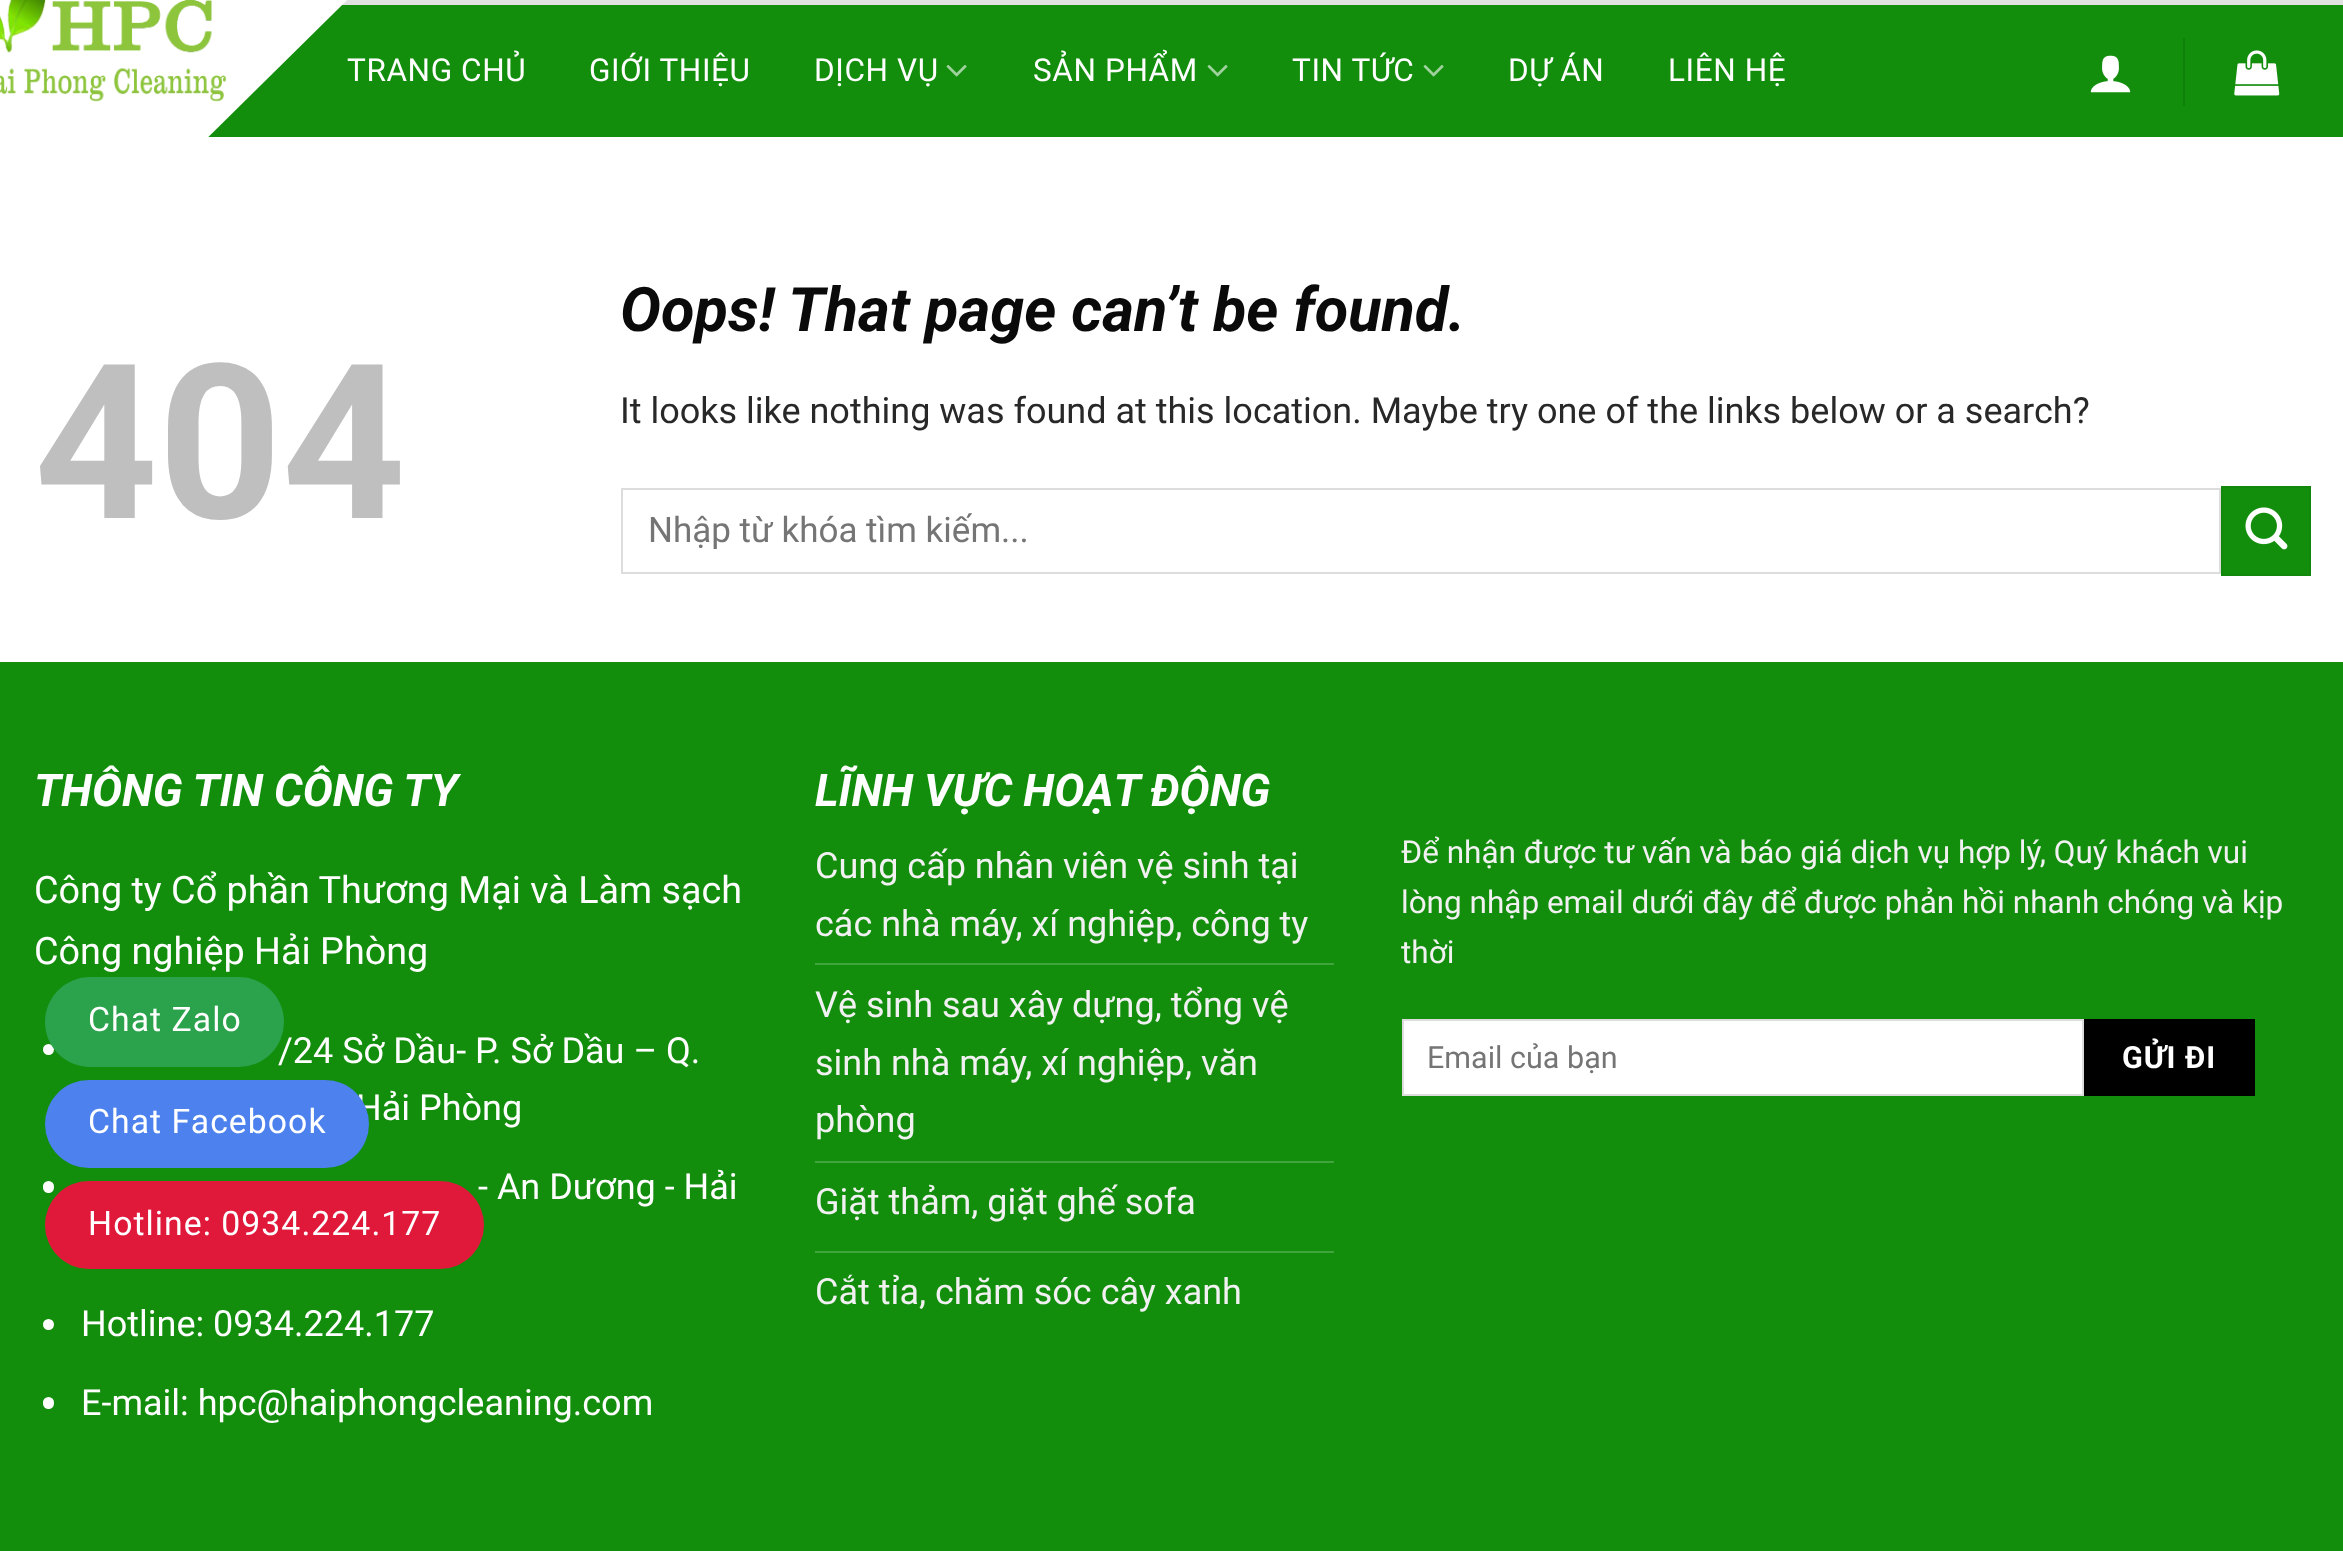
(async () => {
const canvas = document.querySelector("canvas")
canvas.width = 2343
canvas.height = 1551
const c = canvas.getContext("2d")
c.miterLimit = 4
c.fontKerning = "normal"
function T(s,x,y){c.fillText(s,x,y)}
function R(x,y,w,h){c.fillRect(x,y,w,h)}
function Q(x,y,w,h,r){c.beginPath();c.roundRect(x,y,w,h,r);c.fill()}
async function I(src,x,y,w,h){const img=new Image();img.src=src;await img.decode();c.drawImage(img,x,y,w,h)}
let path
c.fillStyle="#fff"
R(0,0,2343,1551)
c.fillStyle="#e1e1e1"
R(342,0,2001,5)
c.fillStyle="#128e0c"
R(208,5,2135,132)
c.fillStyle="#fff"
path = new Path2D("M0-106v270h180l270-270z")
c.fill(path)
path = new Path2D("M181 164h-147v-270h376v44z")
c.fill(path)
await I("1.png",0,0,227,102)
c.letterSpacing="0.6px"
c.font="31.5px Roboto"
T("TRANG CHỦ",347,81)
T("GIỚI THIỆU",589,81)
T("DỊCH VỤ",814,81)
await I("2.png",946,64,21,13)
T("SẢN PHẨM",1033,81)
await I("2.png",1207,64,21,13)
T("TIN TỨC",1292,81)
await I("2.png",1423,64,21,13)
T("DỰ ÁN",1508,81)
T("LIÊN HỆ",1668,81)
await I("3.png",2090,55,41,38)
c.fillStyle="#10800b"
R(2183,38,2,68)
await I("4.png",2234,50,46,46)
c.letterSpacing="0px"
c.font="bold 216px Roboto"
c.fillStyle="#bfbfbf"
T("404",34,518)
c.font="italic bold 61.25px Roboto"
c.fillStyle="#0a0a0a"
T("Oops! That page can’t be found.",620,331)
c.font="36px Roboto"
c.fillStyle="#282828"
T("It looks like nothing was found at this location. Maybe try one of the links below or a search?",620,423)
c.strokeStyle="#ddd"
c.lineWidth=2
c.strokeRect(622,489,1598,84)
c.font="35px Roboto"
c.fillStyle="#757575"
T("Nhập từ khóa tìm kiếm...",648,542)
c.fillStyle="#128e0c"
c.beginPath()
c.rect(2222,487,88,88)
c.fill()
c.strokeStyle="#11870b"
c.stroke()
await I("5.png",2245,507,43,43)
R(0,662,2343,889)
c.font="italic bold 45px Roboto"
c.fillStyle="#fff"
T("THÔNG TIN CÔNG TY",34,806)
c.font="37.75px Roboto"
T("Công ty Cổ phần Thương Mại và Làm sạch",34,903)
T("Công nghiệp Hải Phòng",34,964)
c.beginPath()
c.arc(48.5,1049.5,5.5,0,7)
c.fill()
c.font="36px Roboto"
T("/24 Sở Dầu- P. Sở Dầu – Q.",278,1063)
T("Hải Phòng",356,1120)
Q(43,1181,11,12,5.5)
T("- An Dương - Hải",478,1199)
c.beginPath()
c.arc(48.5,1324.5,5.5,0,7)
c.fill()
T("Hotline: 0934.224.177",81,1336)
Q(43,1397,11,12,5.5)
T("E-mail: hpc@haiphongcleaning.com",81,1415)
c.font="italic bold 45px Roboto"
T("LĨNH VỰC HOẠT ĐỘNG",815,806)
c.fillStyle="#41a53d"
R(815,963,519,2)
c.font="36px Roboto"
c.fillStyle="#f1f1f1"
T("Cung cấp nhân viên vệ sinh tại",815,878)
T("các nhà máy, xí nghiệp, công ty",815,936)
c.fillStyle="#41a53d"
R(815,1161,519,2)
c.fillStyle="#f1f1f1"
T("Vệ sinh sau xây dựng, tổng vệ",815,1017)
T("sinh nhà máy, xí nghiệp, văn",815,1075)
T("phòng",815,1132)
c.fillStyle="#41a53d"
R(815,1251,519,2)
c.fillStyle="#f1f1f1"
T("Giặt thảm, giặt ghế sofa",815,1214)
T("Cắt tỉa, chăm sóc cây xanh",815,1304)
c.font="31.5px Roboto"
T("Để nhận được tư vấn và báo giá dịch vụ hợp lý, Quý khách vui",1401,863)
T("lòng nhập email dưới đây để được phản hồi nhanh chóng và kịp",1401,913)
T("thời",1401,963)
c.fillStyle="#fff"
c.beginPath()
c.rect(1403,1020,680,75)
c.fill()
c.strokeStyle="#ddd"
c.stroke()
c.font="30.5px Roboto"
c.fillStyle="#757575"
T("Email của bạn",1427,1068)
c.fillStyle="#000"
R(2084,1019,171,77)
c.letterSpacing="1px"
c.font="bold 30.5px Roboto"
c.fillStyle="#fff"
T("GỬI ĐI",2122,1068)
c.fillStyle="#2ba24c"
Q(45,977,239,90,45)
c.letterSpacing="1.05px"
c.font="33.75px Roboto"
c.fillStyle="#fff"
T("Chat Zalo",88,1031)
c.fillStyle="#4d81ee"
Q(45,1080,324,88,44)
c.fillStyle="#fff"
T("Chat Facebook",88,1133)
c.fillStyle="#e0193b"
Q(45,1181,439,88,44)
c.fillStyle="#fff"
T("Hotline: 0934.224.177",88,1235)
})()
